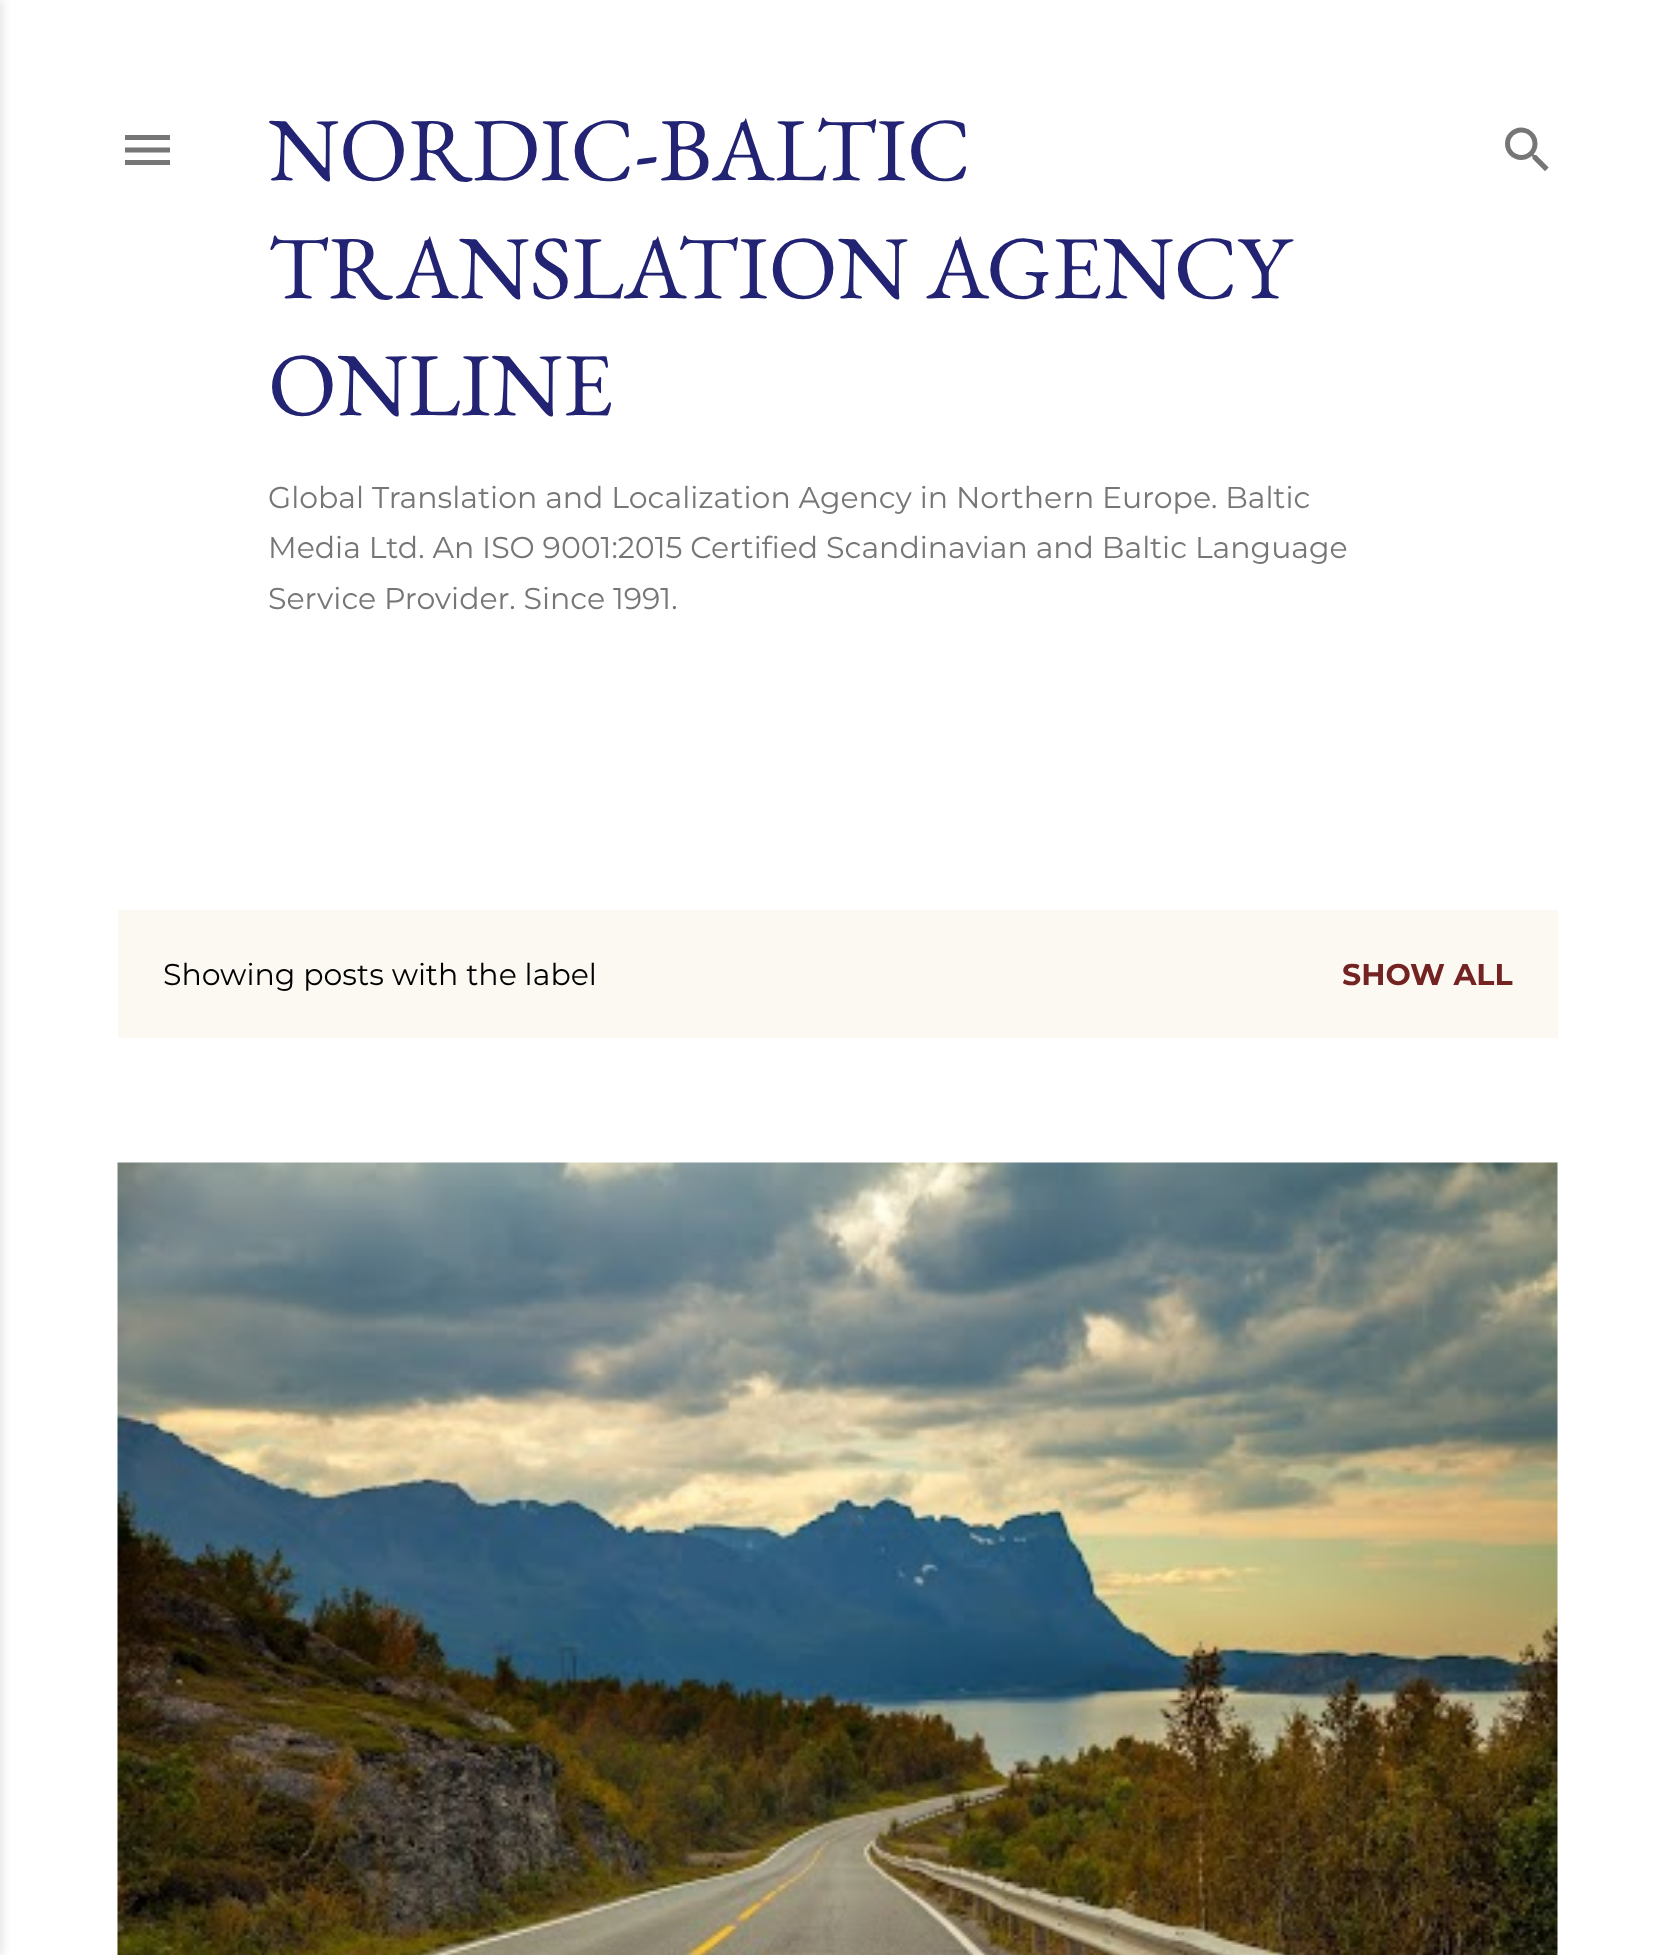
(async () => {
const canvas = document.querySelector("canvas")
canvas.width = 1673
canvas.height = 1955
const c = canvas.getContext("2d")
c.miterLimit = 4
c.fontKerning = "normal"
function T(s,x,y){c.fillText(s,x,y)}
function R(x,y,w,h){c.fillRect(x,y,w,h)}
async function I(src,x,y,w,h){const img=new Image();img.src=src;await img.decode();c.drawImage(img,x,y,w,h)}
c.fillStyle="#fff"
R(0,0,1673,1955)
c.fillStyle="#0000001a"
c.filter="blur(4px)"
c.beginPath()
c.rect(-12,0,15,1955)
c.fill()
c.filter="none"
await I("1.png",125,135,45,30)
c.font="90px EB Garamond"
c.fillStyle="#232374"
T("NORDIC-BALTIC",268,180)
T("TRANSLATION AGENCY",268,298)
T("ONLINE",268,415)
c.font="30px Montserrat"
c.fillStyle="#767676"
T("Global Translation and Localization Agency in Northern Europe. Baltic",268,508)
T("Media Ltd. An ISO 9001:2015 Certified Scandinavian and Baltic Language",268,558)
T("Service Provider. Since 1991.",268,609)
await I("2.png",1505,127,44,44)
c.fillStyle="#fcf9f2"
R(118,910,1440,128)
c.fillStyle="#000"
T("Showing posts with the label",163,985)
c.font="bold 30px Montserrat"
c.fillStyle="#742323"
T("SHOW ALL",1342,985)
await I("3.png",117,1162,1441,793)
})()
